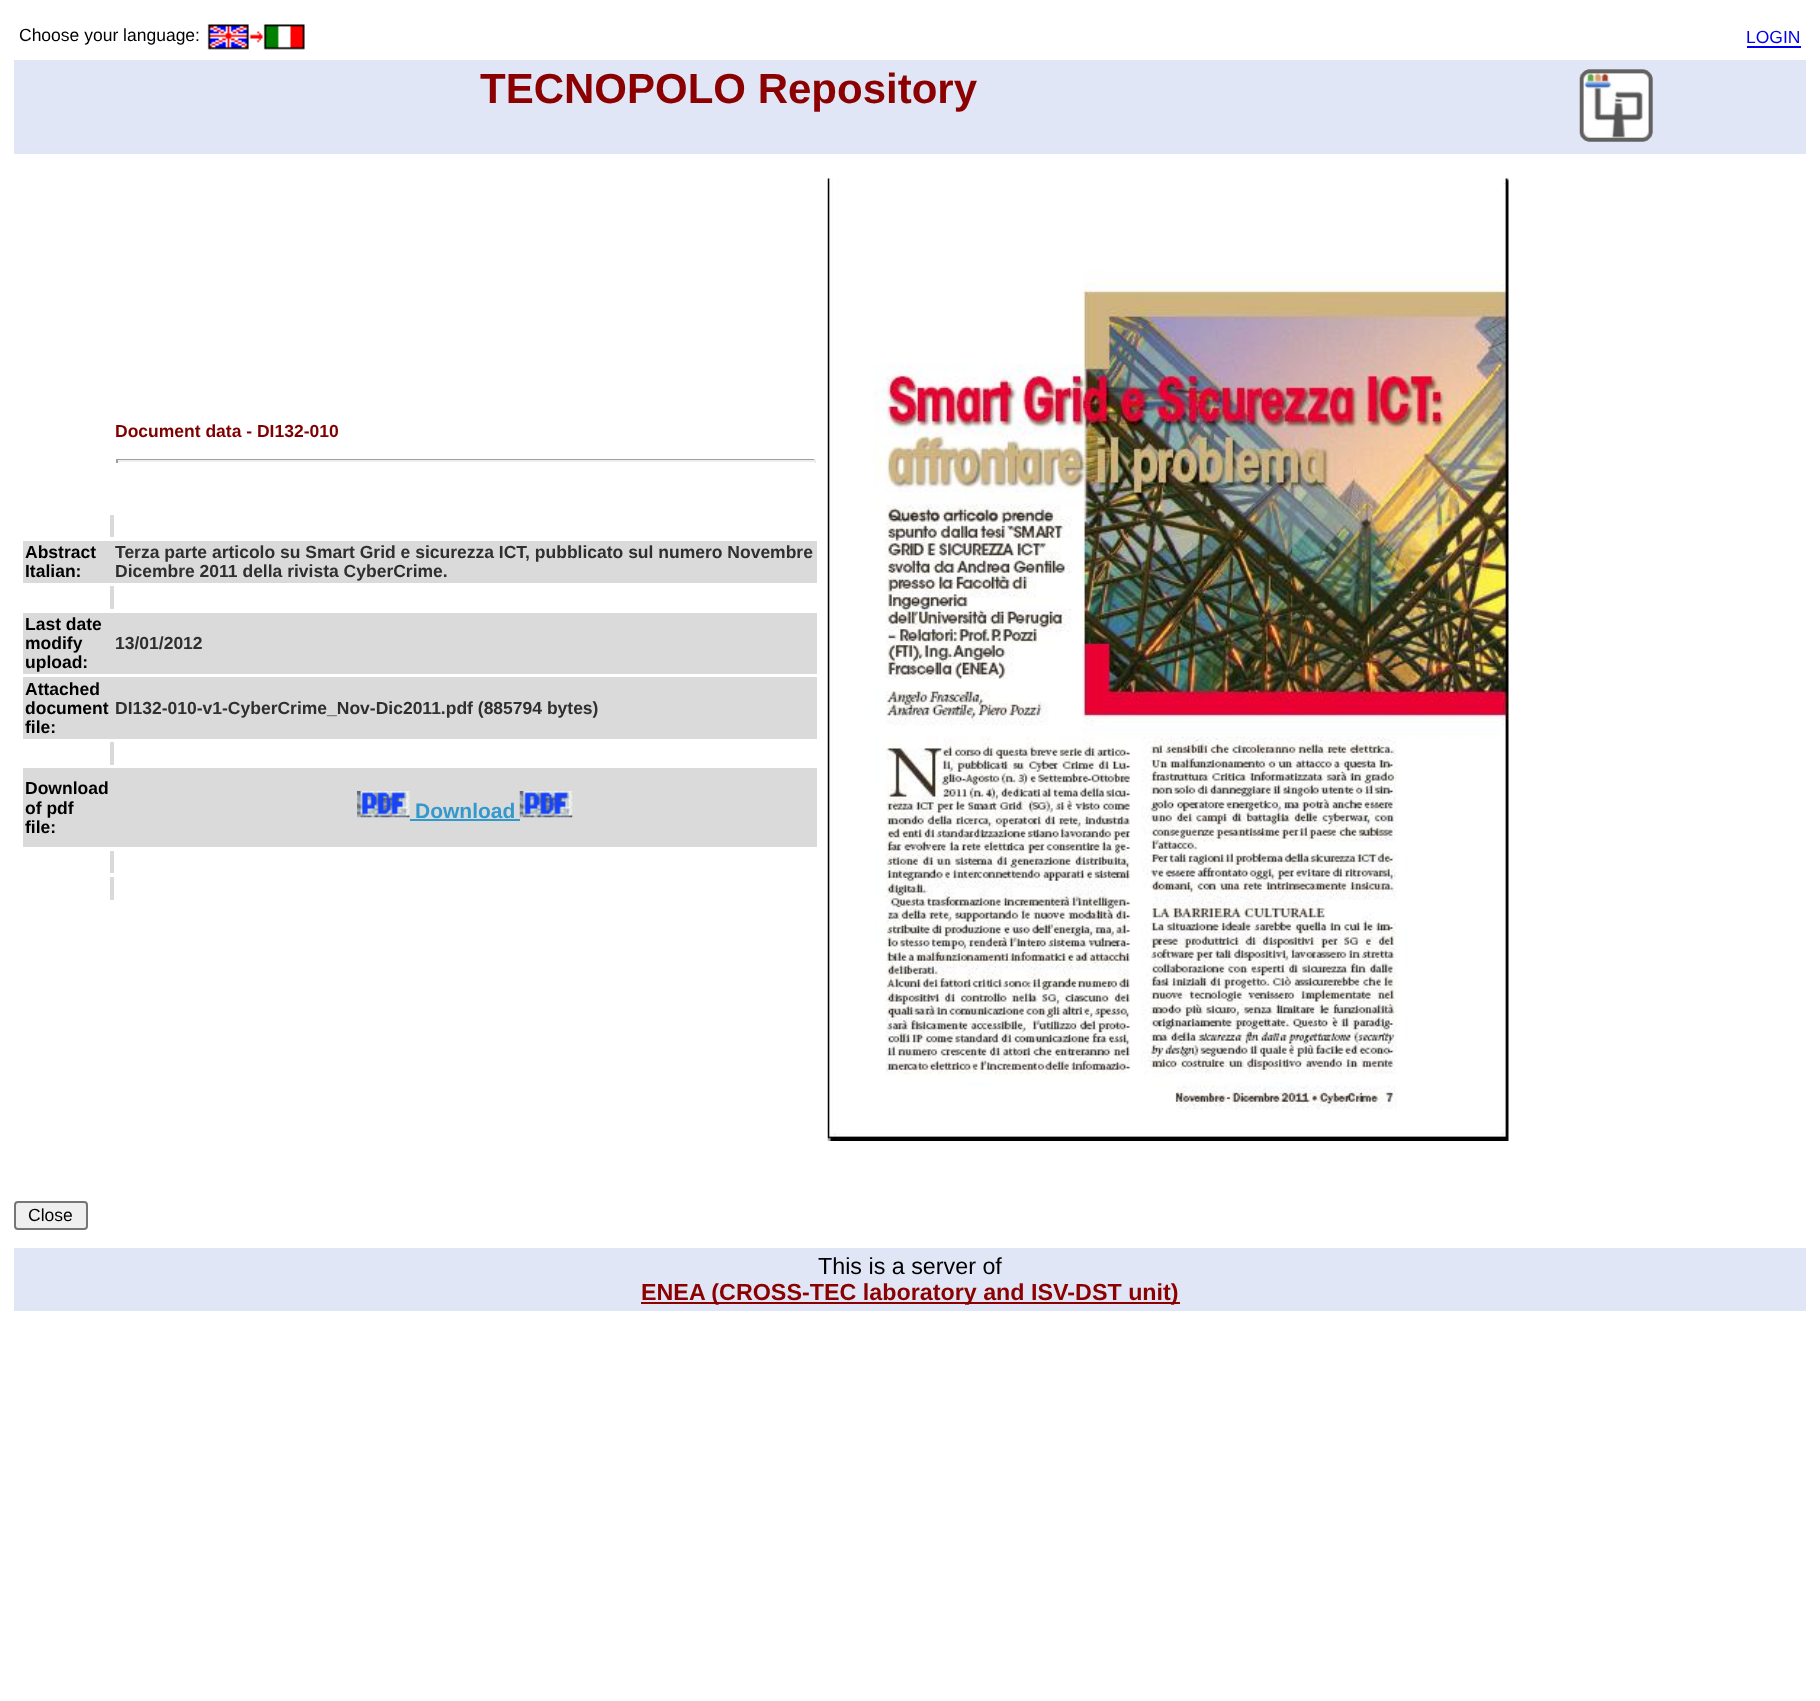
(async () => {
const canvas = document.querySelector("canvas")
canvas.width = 1820
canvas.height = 1701
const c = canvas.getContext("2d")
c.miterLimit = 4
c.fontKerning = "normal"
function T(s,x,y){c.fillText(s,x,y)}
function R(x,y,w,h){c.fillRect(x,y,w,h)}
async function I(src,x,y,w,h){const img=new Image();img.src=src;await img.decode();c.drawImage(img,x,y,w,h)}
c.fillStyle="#fff"
R(0,0,1820,1701)
c.font="17.5px Liberation Sans"
c.fillStyle="#000"
T("Choose your language:",19,41)
await I("1.png",207,24,98,26)
c.fillStyle="#00e"
T("LOGIN",1746,43)
R(1747,46,54,2)
c.fillStyle="#e0e6f5"
R(14,60,1792,94)
c.font="bold 42px Liberation Sans"
c.fillStyle="#8b0000"
T("TECNOPOLO Repository",480,103)
await I("2.png",1579,69,74,73)
c.font="bold 17.5px Liberation Sans"
c.fillStyle="#800000"
T("Document data - DI132-010",115,437)
c.fillStyle="#9f9f9f"
R(116,459,700,1)
c.fillStyle="#eee"
R(814,459,2,4)
R(116,460,700,2)
c.fillStyle="#9f9f9f"
R(116,459,2,4)
c.fillStyle="#dadada"
R(110,515,4,22)
R(23,541,794,42)
c.fillStyle="#000"
T("Abstract",25,558)
T("Italian:",25,577)
c.fillStyle="#2f2f2f"
T("Terza parte articolo su Smart Grid e sicurezza ICT, pubblicato sul numero Novembre",115,558)
T("Dicembre 2011 della rivista CyberCrime.",115,577)
c.fillStyle="#dadada"
R(110,586,4,23)
R(23,613,794,61)
c.fillStyle="#000"
T("Last date",25,630)
T("modify",25,649)
T("upload:",25,668)
c.fillStyle="#2f2f2f"
T("13/01/2012",115,649)
c.fillStyle="#dadada"
R(23,677,794,62)
c.fillStyle="#000"
T("Attached",25,695)
T("document",25,714)
T("file:",25,733)
c.fillStyle="#2f2f2f"
T("DI132-010-v1-CyberCrime_Nov-Dic2011.pdf (885794 bytes)",115,714)
c.fillStyle="#dadada"
R(110,742,4,23)
R(23,768,794,79)
c.fillStyle="#000"
T("Download",25,794)
T("of pdf",25,814)
T("file:",25,833)
await I("3.png",357,791,53,27)
c.font="bold 21px Liberation Sans"
c.fillStyle="#39c"
T("Download",415,818)
R(410,819,110,2)
await I("4.png",519,791,54,27)
c.fillStyle="#dadada"
R(110,851,4,22)
R(110,877,4,23)
await I("5.png",827,178,682,963)
c.fillStyle="#efefef"
c.beginPath()
c.roundRect(15,1202,72,27,3)
c.fill()
c.strokeStyle="#767676"
c.lineWidth=2
c.stroke()
c.font="17.5px Liberation Sans"
c.fillStyle="#000"
T("Close",28,1221)
c.fillStyle="#e0e6f5"
R(14,1248,1792,63)
c.font="23.3px Liberation Sans"
c.fillStyle="#000"
T("This is a server of",818,1274)
c.fillStyle="#8b0000"
R(641,1302,539,2)
c.font="bold 23.3px Liberation Sans"
T("ENEA (CROSS-TEC laboratory and ISV-DST unit)",641,1300)
})()
